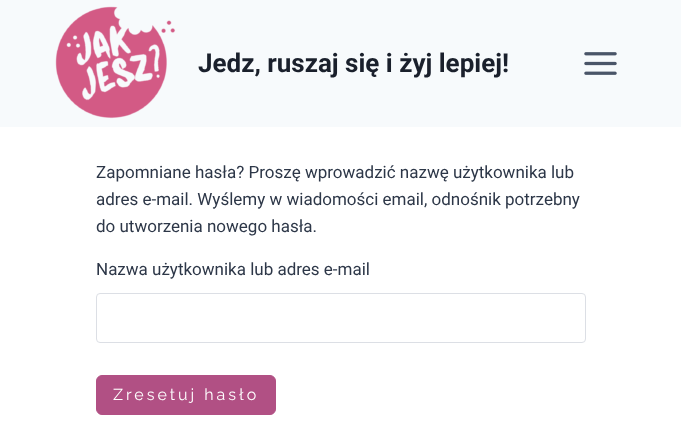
(async () => {
const canvas = document.querySelector("canvas")
canvas.width = 681
canvas.height = 439
const c = canvas.getContext("2d")
c.miterLimit = 4
c.fontKerning = "normal"
function T(s,x,y){c.fillText(s,x,y)}
function R(x,y,w,h){c.fillRect(x,y,w,h)}
async function I(src,x,y,w,h){const img=new Image();img.src=src;await img.decode();c.drawImage(img,x,y,w,h)}
c.fillStyle="#fff"
R(0,0,681,439)
c.fillStyle="#f7fafc"
R(0,0,681,127)
await I("1.png",55,6,121,113)
c.font="bold 26px Roboto"
c.fillStyle="#1a202c"
T("Jedz, ruszaj się i żyj lepiej!",198,72)
await I("2.png",584,52,33,23)
c.font="17px Roboto"
c.fillStyle="#2d3748"
T("Zapomniane hasła? Proszę wprowadzić nazwę użytkownika lub",96,178)
T("adres e-mail. Wyślemy w wiadomości email, odnośnik potrzebny",96,205)
T("do utworzenia nowego hasła.",96,232)
T("Nazwa użytkownika lub adres e-mail",96,275)
c.beginPath()
c.roundRect(96.5,293.5,489,49,3.5)
c.strokeStyle="#dcdfe5"
c.stroke()
c.fillStyle="#b15084"
c.beginPath()
c.roundRect(96.5,375.5,179,39,5.5)
c.fill()
c.strokeStyle="#b15084"
c.stroke()
c.letterSpacing="3px"
c.font="16px Raleway"
c.fillStyle="#fff"
T("Zresetuj hasło",113,400)
})()
